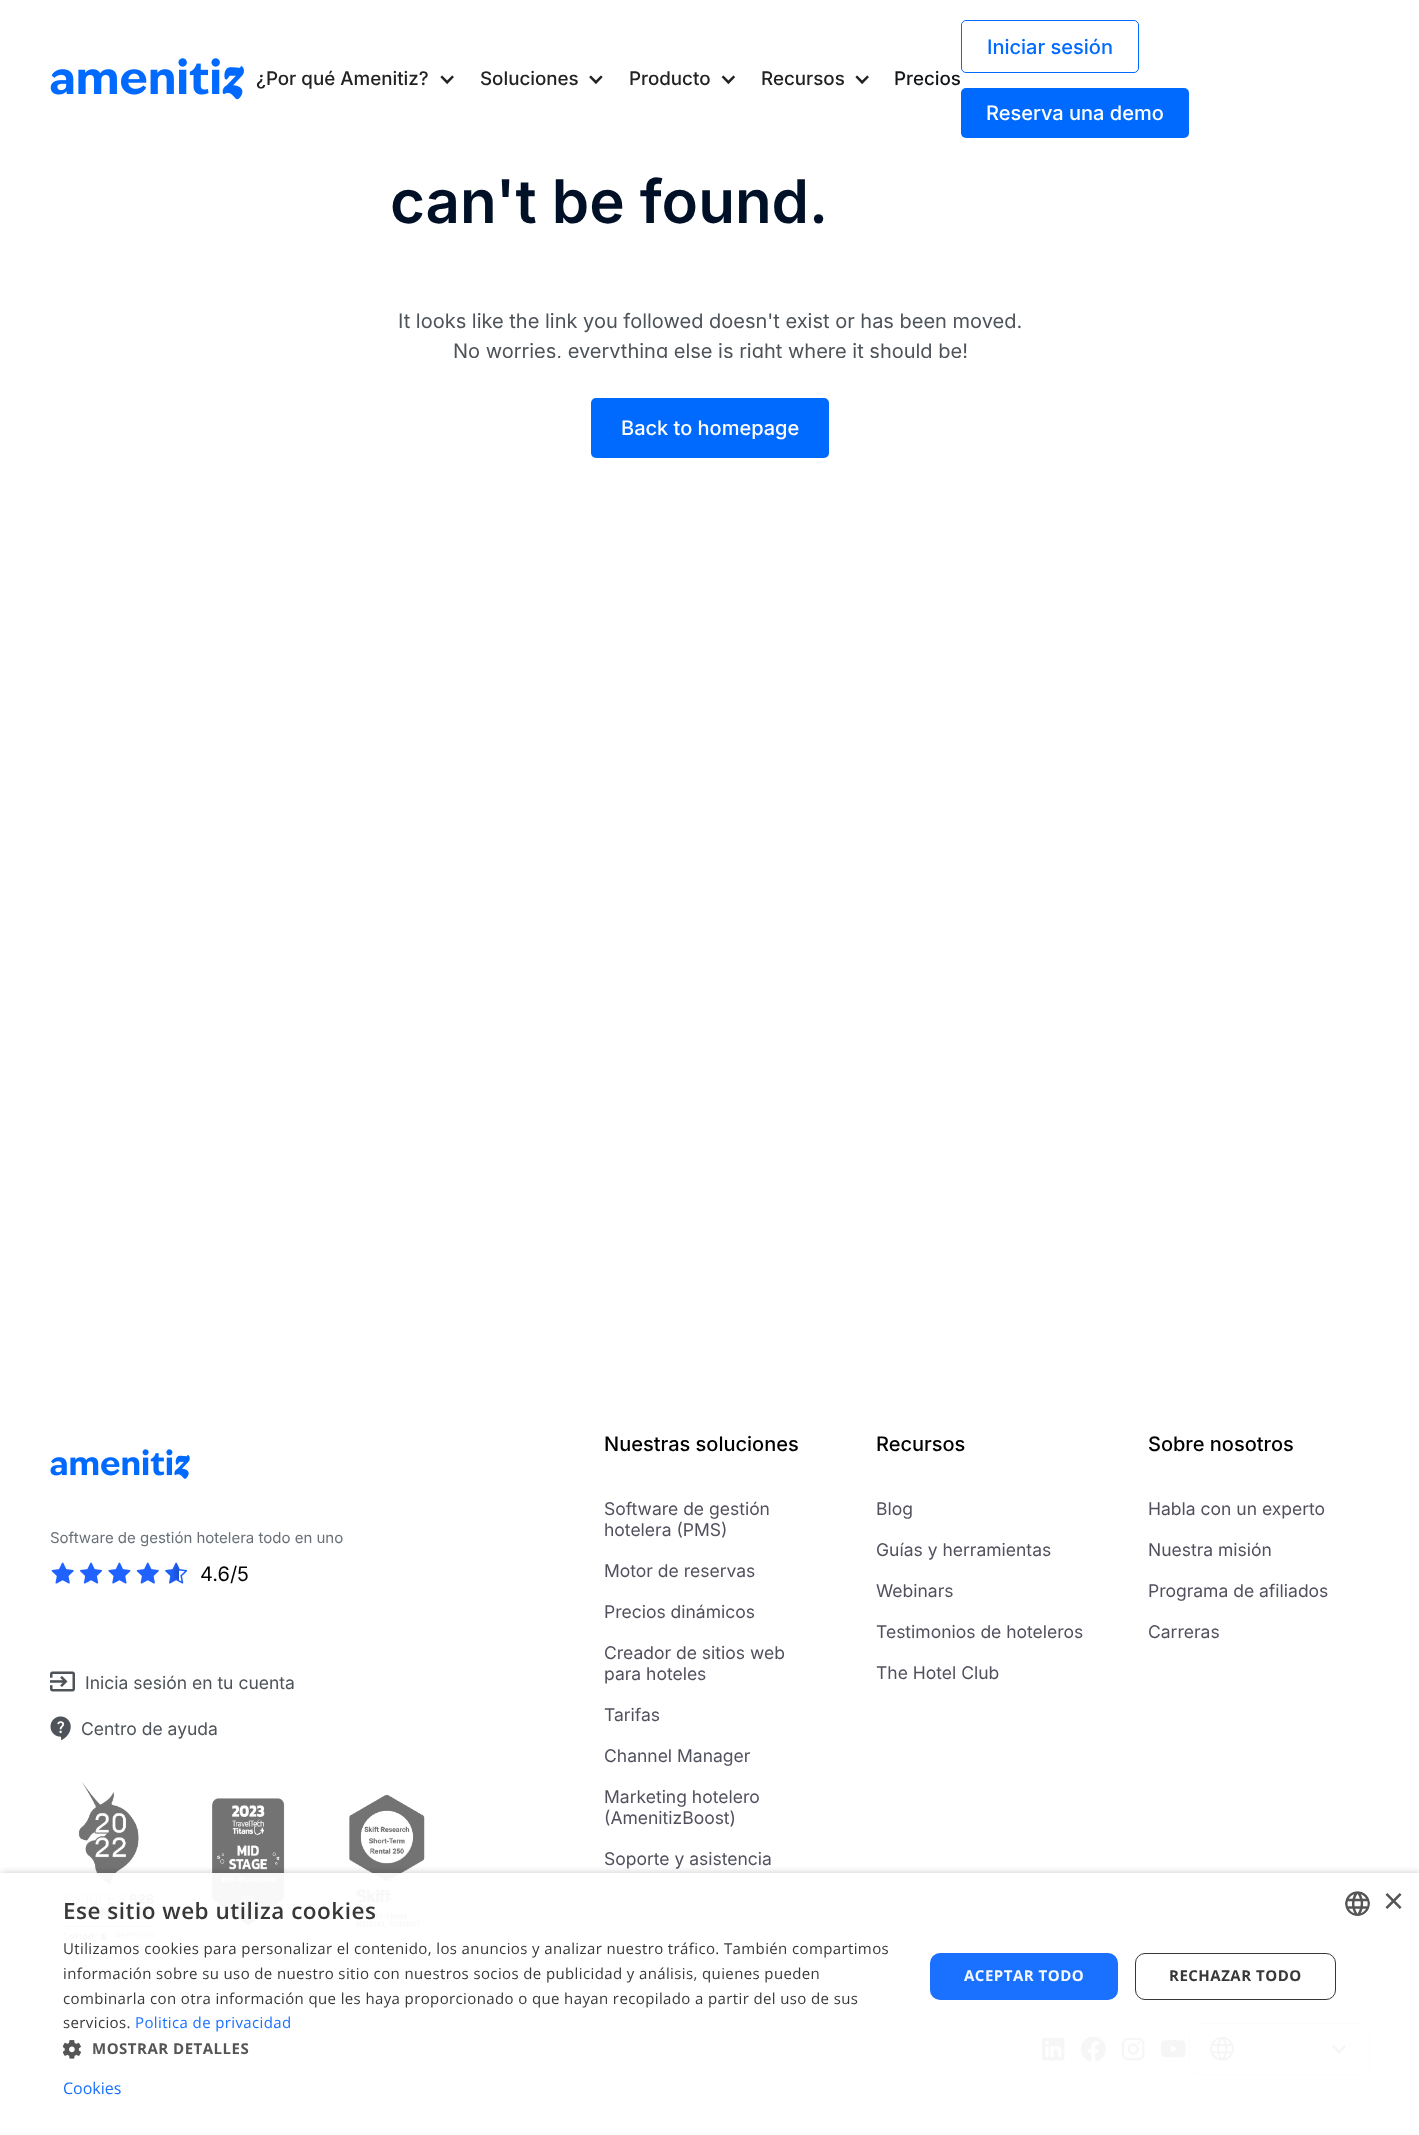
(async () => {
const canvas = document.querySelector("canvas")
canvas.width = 1419
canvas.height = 2135
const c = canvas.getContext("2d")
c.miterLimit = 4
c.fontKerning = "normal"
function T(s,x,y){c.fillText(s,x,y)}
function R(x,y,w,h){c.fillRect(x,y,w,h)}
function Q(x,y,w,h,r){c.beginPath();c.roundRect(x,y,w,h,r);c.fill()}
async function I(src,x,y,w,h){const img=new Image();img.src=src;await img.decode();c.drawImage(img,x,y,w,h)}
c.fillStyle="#fff"
R(0,0,1419,2135)
await I("1.png",50,58,194,42)
c.font="500 18.75px Inter"
c.fillStyle="#222"
T("¿Por qué Amenitiz?",256,85)
await I("2.png",440,75,14,10)
T("Soluciones",480,85)
await I("3.png",589,75,14,10)
T("Producto",629,85)
await I("4.png",721,75,15,10)
T("Recursos",761,85)
await I("2.png",855,75,14,10)
c.fillStyle="#121619"
T("Precios",894,85)
c.beginPath()
c.roundRect(961.5,20.5,177,52,4.5)
c.strokeStyle="#006aff"
c.stroke()
c.font="500 20px Inter"
c.fillStyle="#006aff"
T("Iniciar sesión",987,54)
Q(961,88,228,50,5)
c.fillStyle="#fff"
T("Reserva una demo",986,120)
c.font="600 60px Inter"
c.fillStyle="#001027"
T("can't be found.",390,223)
c.font="20px Inter"
c.fillStyle="#4d5358"
T("It looks like the link you followed doesn't exist or has been moved.",398,328)
c.save()
c.beginPath()
c.rect(390,313,640,45)
c.clip()
T("No worries, everything else is right where it should be!",453,358)
c.restore()
c.fillStyle="#006aff"
Q(591,398,238,60,5)
c.font="500 20px Inter"
c.fillStyle="#fff"
T("Back to homepage",621,435)
await I("5.png",50,1449,140,30)
c.font="15px Inter"
c.fillStyle="#697077"
T("Software de gestión hotelera todo en uno",50,1543)
await I("6.png",51,1562,137,22)
c.font="20px Inter"
c.fillStyle="#000"
T("4.6/5",200,1581)
await I("7.png",50,1671,25,21)
c.font="17.5px Inter"
c.fillStyle="#4d5358"
T("Inicia sesión en tu cuenta",85,1689)
await I("8.png",50,1716,21,25)
T("Centro de ayuda",81,1735)
await I("9.png",63,1782,92,160)
await I("10.png",212,1798,73,127)
await I("11.png",349,1794,76,133)
c.font="500 20px Inter"
c.fillStyle="#000"
T("Nuestras soluciones",604,1451)
c.font="17.5px Inter"
c.fillStyle="#51515e"
T("Software de gestión",604,1515)
T("hotelera (PMS)",604,1536)
T("Motor de reservas",604,1577)
T("Precios dinámicos",604,1618)
T("Creador de sitios web",604,1659)
T("para hoteles",604,1680)
T("Tarifas",604,1721)
T("Channel Manager",604,1762)
T("Marketing hotelero",604,1803)
T("(AmenitizBoost)",604,1824)
T("Soporte y asistencia",604,1865)
c.font="500 20px Inter"
c.fillStyle="#000"
T("Recursos",876,1451)
c.font="17.5px Inter"
c.fillStyle="#51515e"
T("Blog",876,1515)
T("Guías y herramientas",876,1556)
T("Webinars",876,1597)
T("Testimonios de hoteleros",876,1638)
T("The Hotel Club",876,1679)
c.font="500 20px Inter"
c.fillStyle="#000"
T("Sobre nosotros",1148,1451)
c.font="17.5px Inter"
c.fillStyle="#51515e"
T("Habla con un experto",1148,1515)
T("Nuestra misión",1148,1556)
T("Programa de afiliados",1148,1597)
T("Carreras",1148,1638)
c.fillStyle="#dbeaff"
R(50,1981,1320,1)
await I("12.png",1042,2038,23,23)
await I("13.png",1080,2036,26,26)
await I("14.png",1122,2038,23,23)
await I("15.png",1160,2040,26,18)
c.beginPath()
c.roundRect(1189.5,2023.5,180,51,7.5)
c.strokeStyle="#c1c7cd"
c.stroke()
await I("16.png",1210,2036,24,25)
await I("17.png",1331,2044,16,10)
c.save()
c.beginPath()
c.rect(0,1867,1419,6)
c.clip()
c.fillStyle="#00000054"
c.filter="blur(5px)"
c.beginPath()
c.rect(1,1875,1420,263)
c.fill()
c.filter="none"
c.restore()
c.fillStyle="#fffffff2"
R(50,1873,1320,202)
c.letterSpacing="0.5px"
c.font="600 22.5px Open Sans"
c.fillStyle="#383838"
T("Ese sitio web utiliza cookies",63,1919)
c.letterSpacing="0.38px"
c.font="15px Open Sans"
T("Utilizamos cookies para personalizar el contenido, los anuncios y analizar nuestro tráfico. También compartimos",63,1954)
T("información sobre su uso de nuestro sitio con nuestros socios de publicidad y análisis, quienes pueden",63,1979)
T("combinarla con otra información que les haya proporcionado o que hayan recopilado a partir del uso de sus",63,2004)
T("servicios.",63,2028)
c.fillStyle="#1a71ff"
T("Politica de privacidad",135,2028)
await I("18.png",63,2040,18,19)
c.letterSpacing="0.5px"
c.font="bold 15px Open Sans"
c.fillStyle="#555"
T("MOSTRAR DETALLES",92,2054)
c.fillStyle="#1a71ff"
Q(930,1953,188,47,10)
c.fillStyle="#f4f8ff"
T("ACEPTAR TODO",964,1981)
c.beginPath()
c.roundRect(1135.5,1953.5,200,46,9.5)
c.strokeStyle="#373737"
c.stroke()
c.fillStyle="#383838"
T("RECHAZAR TODO",1169,1981)
await I("19.png",1345,1891,25,25)
c.letterSpacing="0px"
c.font="36px Liberation Sans"
c.fillStyle="#555"
T("×",1383,1913)
c.font="16px Open Sans"
c.fillStyle="#1a71ff"
T("Cookies",63,2094)
})()
